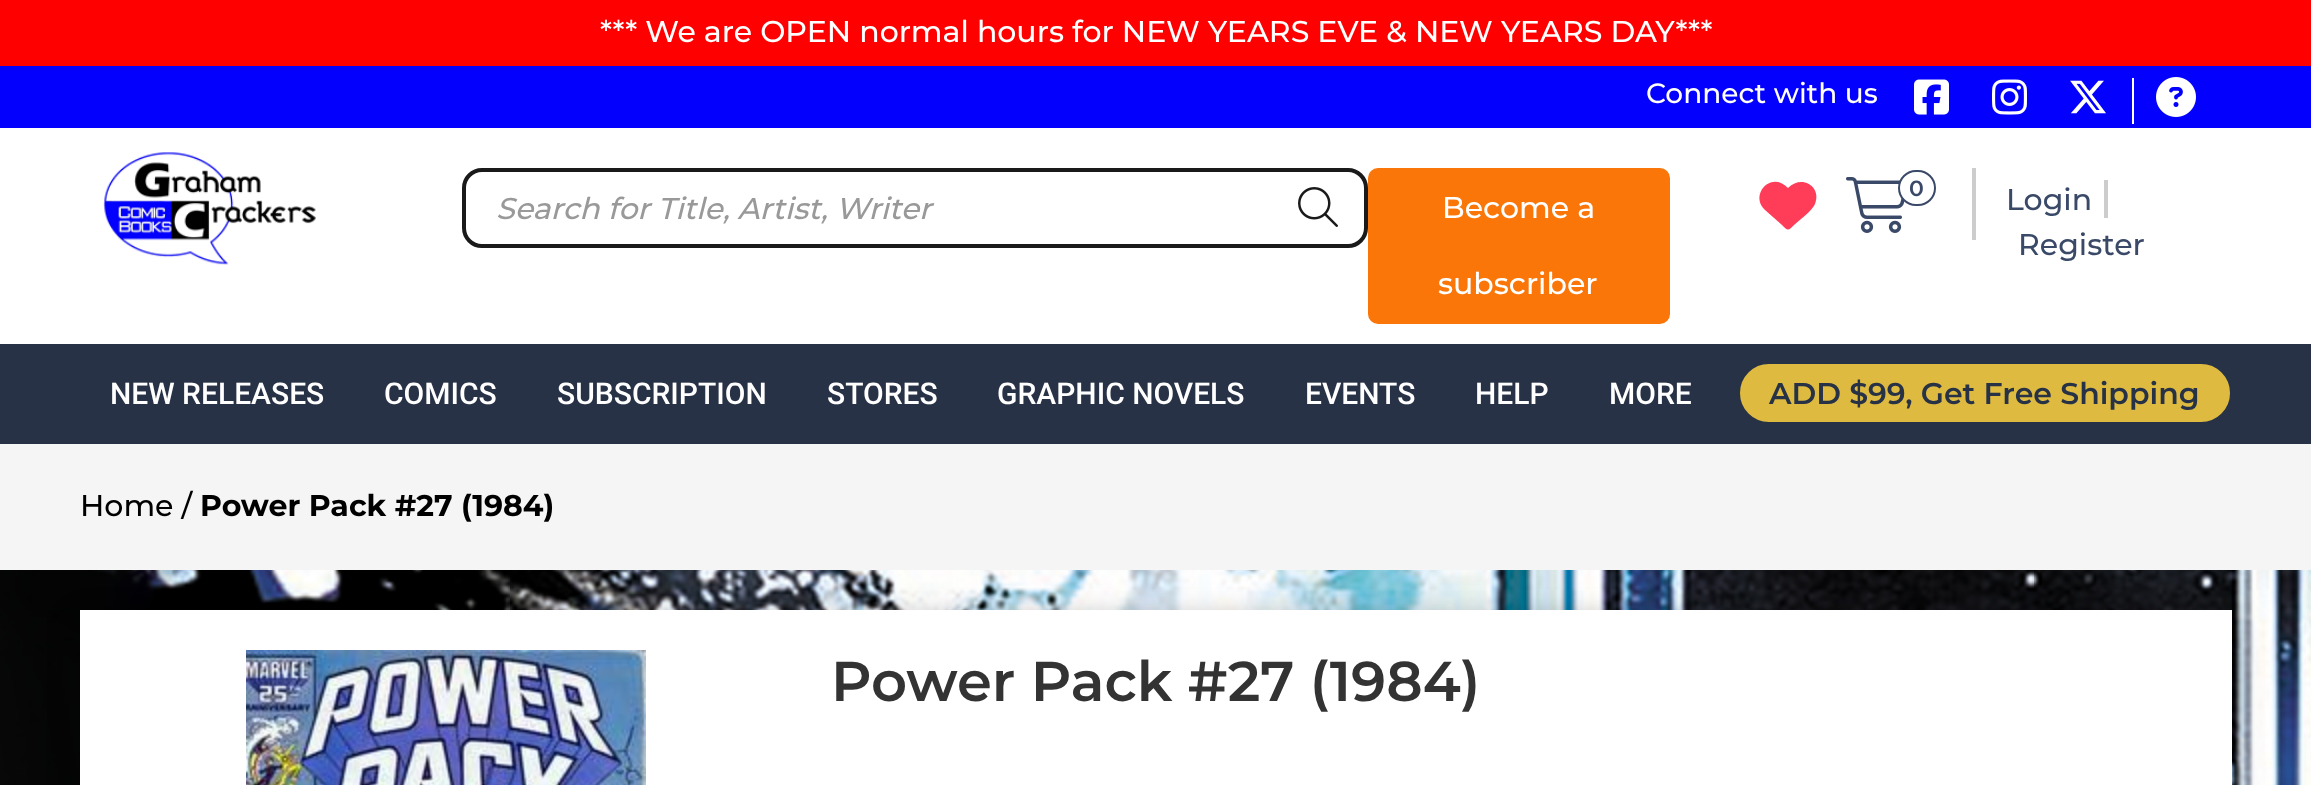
(async () => {
const canvas = document.querySelector("canvas")
canvas.width = 2311
canvas.height = 785
const c = canvas.getContext("2d")
c.miterLimit = 4
c.fontKerning = "normal"
function T(s,x,y){c.fillText(s,x,y)}
function R(x,y,w,h){c.fillRect(x,y,w,h)}
function Q(x,y,w,h,r){c.beginPath();c.roundRect(x,y,w,h,r);c.fill()}
async function I(src,x,y,w,h){const img=new Image();img.src=src;await img.decode();c.drawImage(img,x,y,w,h)}
let path
c.fillStyle="#fff"
R(0,0,2311,785)
await I("1.png",0,570,2311,215)
c.fillStyle="#f00"
R(0,0,2311,66)
c.font="500 30px Montserrat"
c.fillStyle="#fff"
T("*** We are OPEN normal hours for NEW YEARS EVE & NEW YEARS DAY***",600,42)
c.fillStyle="#0300fd"
R(0,66,2311,62)
c.font="500 28px Montserrat"
c.fillStyle="#fff"
T("Connect with us",1646,103)
await I("2.png",1914,79,35,36)
await I("3.png",1992,79,35,36)
await I("4.png",2070,80,36,34)
R(2132,78,2,46)
await I("5.png",2156,77,40,40)
await I("6.png",103,151,213,114)
c.beginPath()
c.roundRect(464,170,902,76,18)
c.strokeStyle="#1a1a1a"
c.lineWidth=4
c.stroke()
c.font="italic 500 30px Montserrat"
c.fillStyle="#999"
T("Search for Title, Artist, Writer",496,219)
await I("7.png",1298,187,40,40)
c.fillStyle="#fa7609"
Q(1368,168,302,156,10)
c.font="500 30px Montserrat"
c.fillStyle="#fff"
T("Become a",1442,218)
T("subscriber",1438,294)
c.fillStyle="#ccc"
R(1972,168,4,72)
c.fillStyle="#ff3d58"
path = new Path2D("M1765 210l20 18l-20-18l17 15c6 6 6 6 12 0l7-6c5-4 11-9 14-15c7-17-13-30-27-16c-17-18-39 7-23 22z")
c.fill(path)
await I("8.png",1846,177,59,56)
c.fillStyle="#fff"
c.beginPath()
c.roundRect(1899,171,36,34,17)
c.fill()
c.strokeStyle="#3a4968"
c.lineWidth=2
c.stroke()
c.font="600 22px Montserrat"
c.fillStyle="#3a4968"
T("0",1909,196)
c.font="500 30px Montserrat"
T("Login",2006,210)
c.fillStyle="#ccc"
R(2104,180,4,38)
c.fillStyle="#3a4968"
T("Register",2018,255)
c.fillStyle="#283246"
R(0,344,2311,100)
c.font="500 30px Roboto"
c.fillStyle="#fff"
T("NEW RELEASES",110,404)
T("COMICS",384,404)
T("SUBSCRIPTION",557,404)
T("STORES",827,404)
T("GRAPHIC NOVELS",997,404)
T("EVENTS",1305,404)
T("HELP",1475,404)
T("MORE",1609,404)
c.fillStyle="#debb40"
c.beginPath()
c.roundRect(1739,363,492,60,30)
c.fill()
c.strokeStyle="#283246"
c.stroke()
c.font="600 30px Montserrat"
c.fillStyle="#283246"
T("ADD $99, Get Free Shipping",1769,404)
c.fillStyle="#f5f5f5"
R(0,444,2311,126)
c.font="500 30px Montserrat"
c.fillStyle="#000"
T("Home /",80,516)
c.font="bold 30px Montserrat"
T("Power Pack #27 (1984)",200,516)
c.fillStyle="#00000059"
c.filter="blur(15px)"
c.beginPath()
c.rect(80,620,2152,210)
c.fill()
c.filter="none"
c.fillStyle="#fff"
R(80,610,2152,175)
await I("9.png",246,650,400,135)
c.font="600 56px Montserrat"
c.fillStyle="#333"
T("Power Pack #27 (1984)",831,701)
})()
